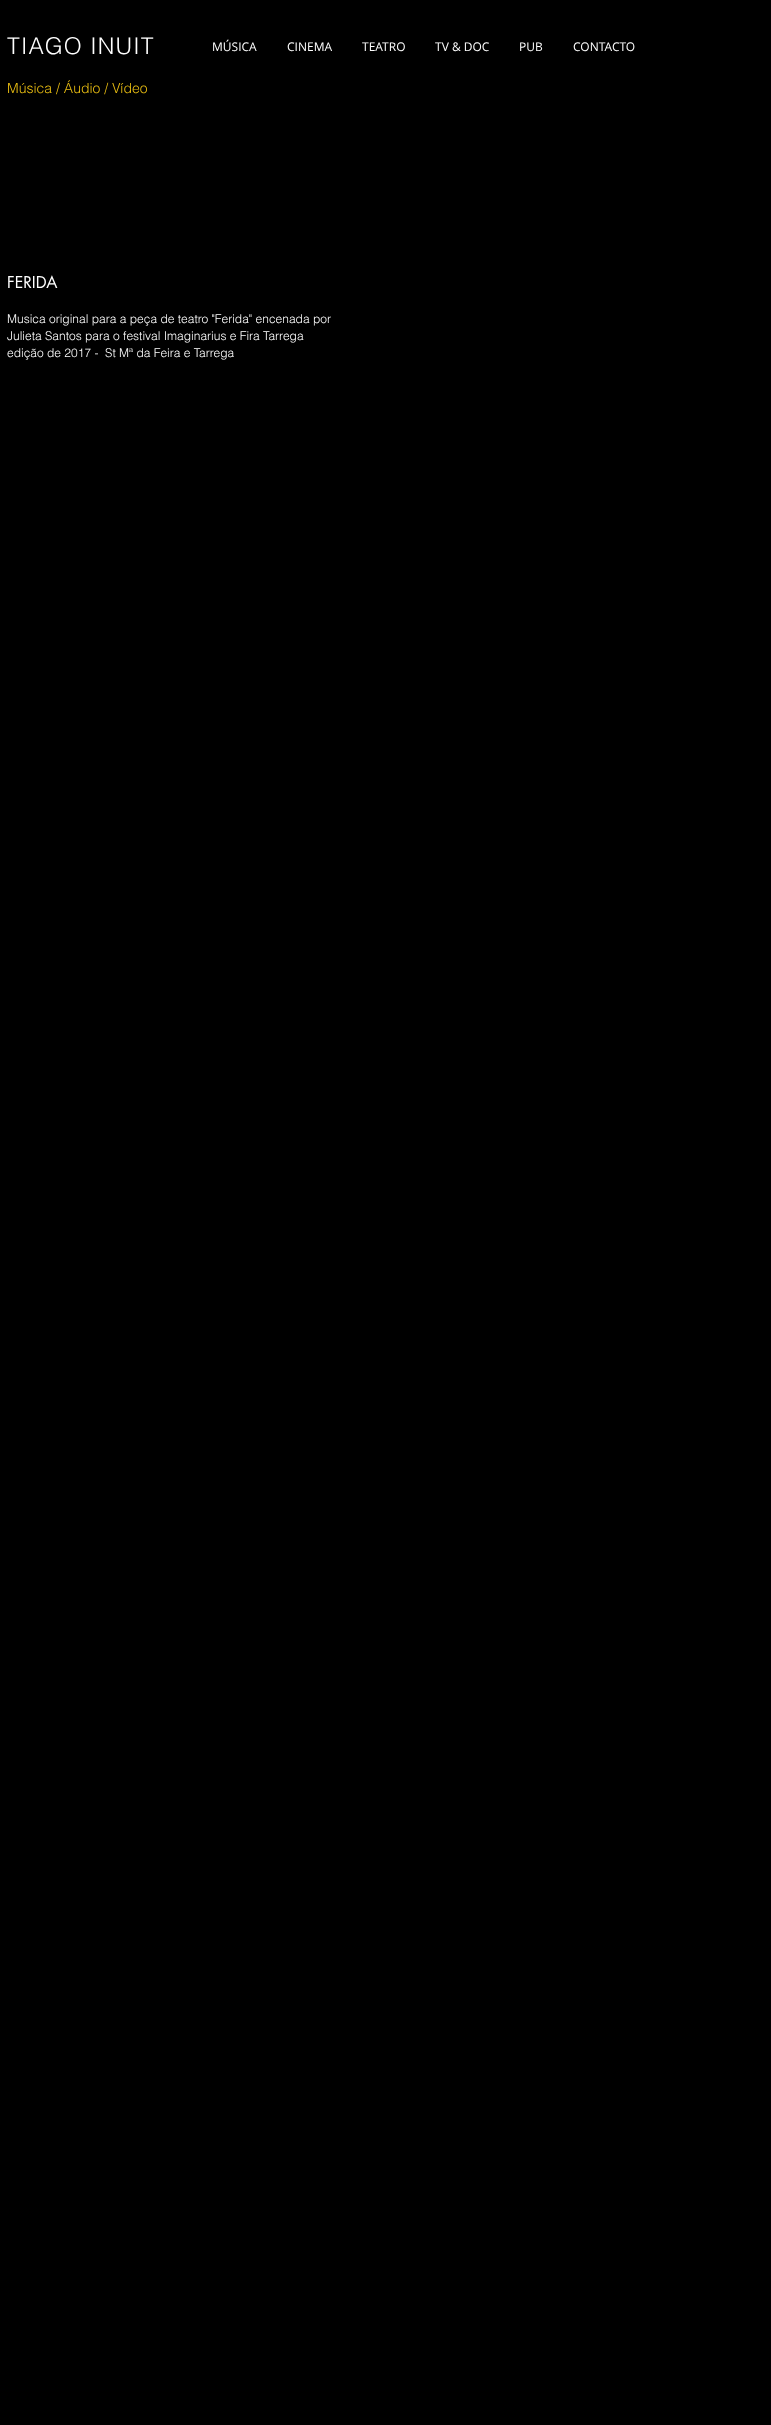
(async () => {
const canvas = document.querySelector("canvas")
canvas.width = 771
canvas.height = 2425
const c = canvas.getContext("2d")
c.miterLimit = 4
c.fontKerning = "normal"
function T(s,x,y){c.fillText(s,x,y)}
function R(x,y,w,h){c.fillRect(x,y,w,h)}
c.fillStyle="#000"
R(0,0,771,2425)
c.letterSpacing="1.1px"
c.font="300 23px helvetica"
c.fillStyle="#fff"
T("TIAGO INUIT",7,54)
c.letterSpacing="0px"
c.font="12px Open Sans"
T("MÚSICA",212,51)
T("CINEMA",287,51)
T("TEATRO",362,51)
T("TV & DOC",435,51)
T("PUB",519,51)
T("CONTACTO",573,51)
c.font="300 14px helvetica"
c.fillStyle="#eabe11"
T("Música / Áudio / Vídeo",7,93)
c.font="16px futura"
c.fillStyle="#fff"
T("FERIDA",7,288)
c.font="300 12px helvetica"
T("Musica original para a peça de teatro \"Ferida\" encenada por",7,323)
T("Julieta Santos para o festival Imaginarius e Fira Tarrega",7,340)
T("edição de 2017 -  St Mª da Feira e Tarrega",7,357)
})()
